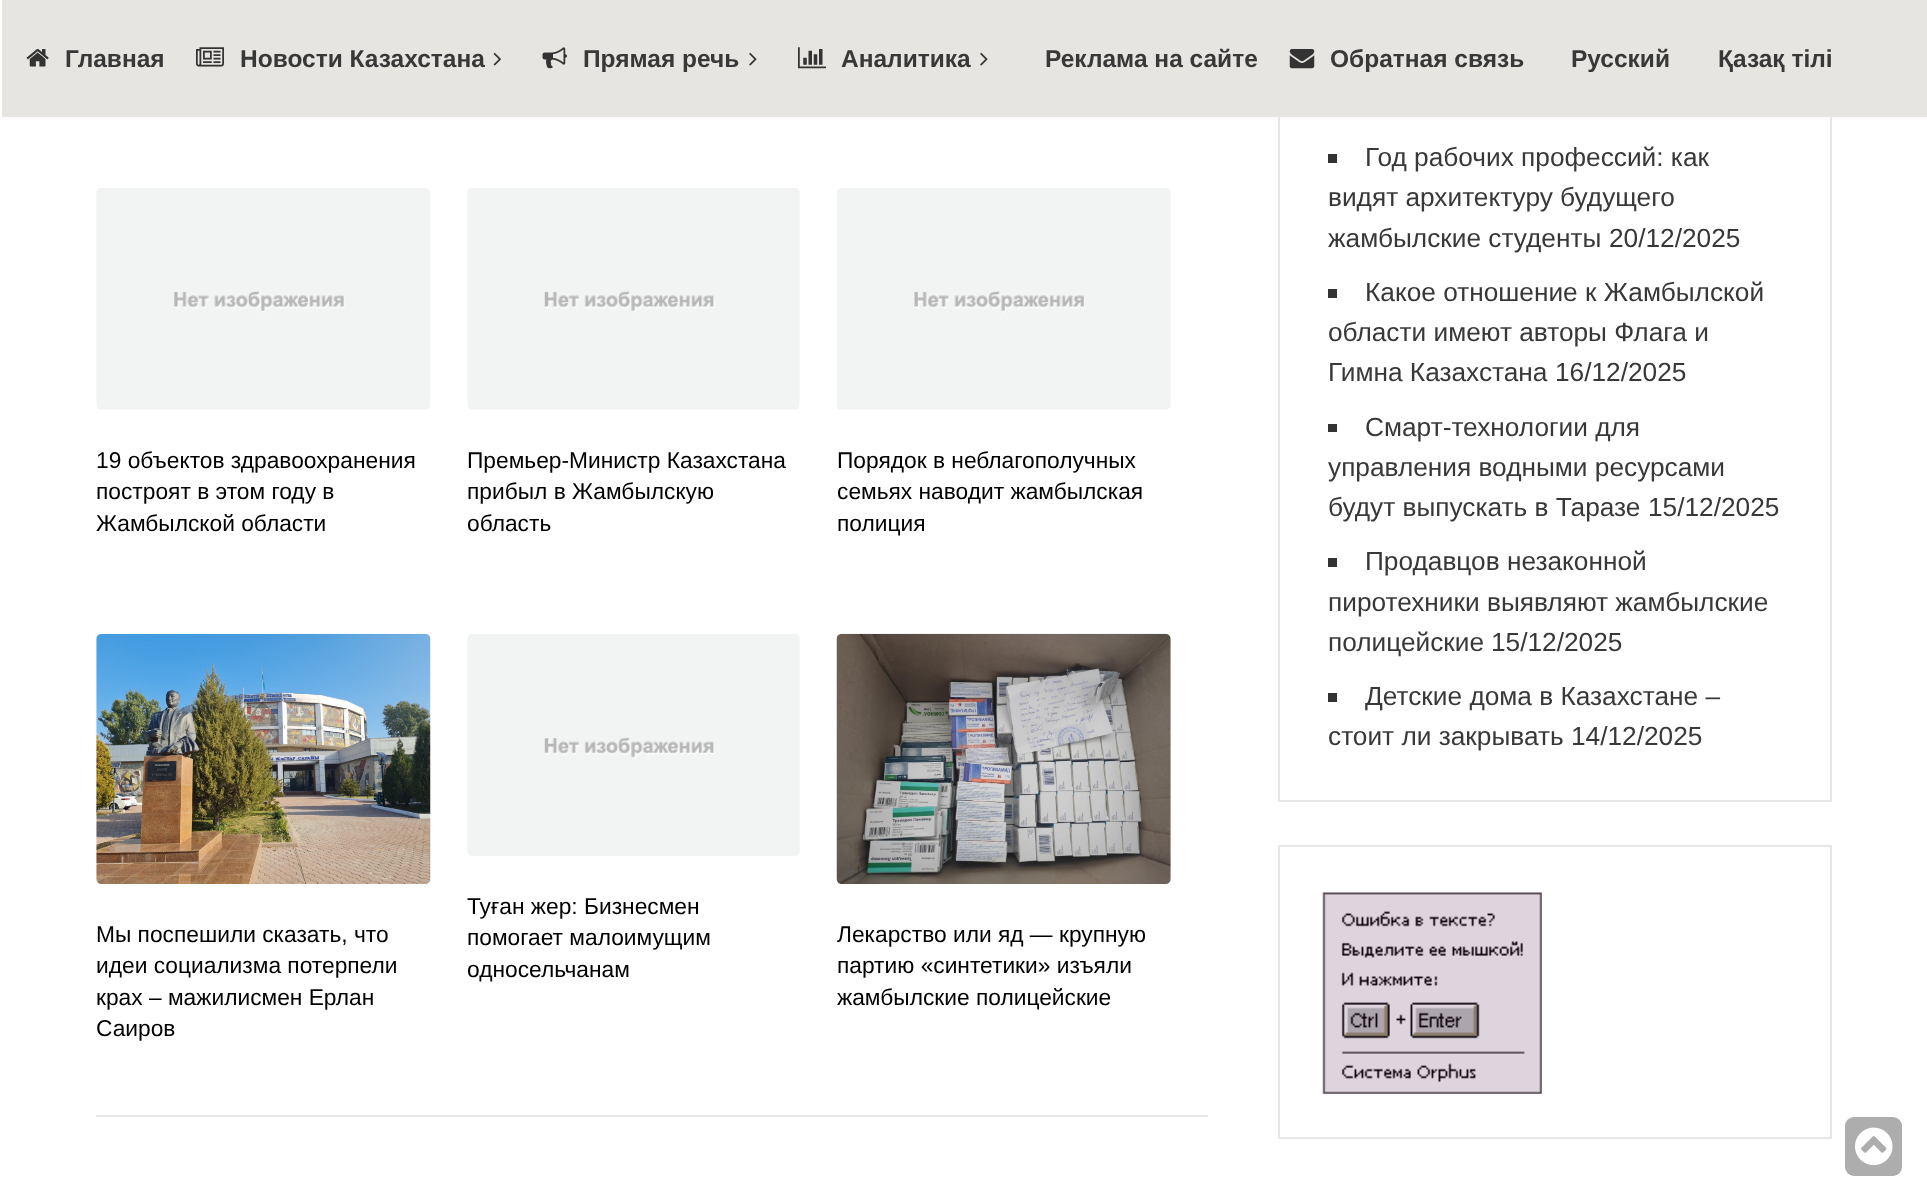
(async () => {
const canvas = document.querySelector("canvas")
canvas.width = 1927
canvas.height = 1202
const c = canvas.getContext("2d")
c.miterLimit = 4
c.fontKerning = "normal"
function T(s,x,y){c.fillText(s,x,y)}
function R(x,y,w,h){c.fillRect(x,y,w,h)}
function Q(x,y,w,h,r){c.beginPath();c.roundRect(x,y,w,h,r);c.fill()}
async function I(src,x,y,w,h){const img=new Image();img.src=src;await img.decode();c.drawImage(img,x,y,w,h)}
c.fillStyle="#fff"
R(0,0,1927,1202)
c.strokeStyle="#e6e6e6"
c.lineWidth=2
c.strokeRect(1279,-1,552,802)
c.fillStyle="#e7e5e1"
R(2,0,1925,117)
await I("1.png",26,49,23,18)
c.font="bold 24.5px Liberation Sans"
c.fillStyle="#383838"
T("Главная",65,67)
await I("2.png",196,47,28,20)
T("Новости Казахстана",240,67)
await I("3.png",493,52,8,14)
await I("4.png",542,47,25,22)
T("Прямая речь",583,67)
await I("5.png",749,52,8,14)
await I("6.png",798,47,28,22)
T("Аналитика",841,67)
await I("5.png",980,52,8,14)
T("Реклама на сайте",1045,67)
await I("7.png",1289,49,26,20)
T("Обратная связь",1330,67)
T("Русский",1571,67)
T("Қазақ тілі",1718,67)
await I("8.png",96,188,334,222)
c.font="22.75px Liberation Sans"
c.fillStyle="#000"
T("19 объектов здравоохранения",96,468)
T("построят в этом году в",96,499)
T("Жамбылской области",96,531)
await I("9.png",467,188,333,222)
T("Премьер-Министр Казахстана",467,468)
T("прибыл в Жамбылскую",467,499)
T("область",467,531)
await I("10.png",837,188,334,222)
T("Порядок в неблагополучных",837,468)
T("семьях наводит жамбылская",837,499)
T("полиция",837,531)
await I("11.png",96,633,335,251)
T("Мы поспешили сказать, что",96,942)
T("идеи социализма потерпели",96,973)
T("крах – мажилисмен Ерлан",96,1005)
T("Саиров",96,1036)
await I("12.png",467,634,333,222)
T("Туған жер: Бизнесмен",467,914)
T("помогает малоимущим",467,945)
T("односельчанам",467,977)
await I("13.png",836,633,335,251)
T("Лекарство или яд — крупную",837,942)
T("партию «синтетики» изъяли",837,973)
T("жамбылские полицейские",837,1005)
c.fillStyle="#e6e6e6"
R(96,1115,1112,2)
c.fillStyle="#333"
R(1328,154,9,9)
c.font="26.25px Liberation Sans"
c.fillStyle="#383838"
T("Год рабочих профессий: как",1365,166)
T("видят архитектуру будущего",1328,206)
T("жамбылские студенты",1328,247)
T("20/12/2025",1609,247)
c.fillStyle="#333"
R(1328,289,9,9)
c.fillStyle="#383838"
T("Какое отношение к Жамбылской",1365,301)
T("области имеют авторы Флага и",1328,341)
T("Гимна Казахстана",1328,381)
T("16/12/2025",1555,381)
c.fillStyle="#333"
R(1328,424,9,8)
c.fillStyle="#383838"
T("Смарт-технологии для",1365,436)
T("управления водными ресурсами",1328,476)
T("будут выпускать в Таразе",1328,516)
T("15/12/2025",1648,516)
c.fillStyle="#333"
R(1328,558,9,9)
c.fillStyle="#383838"
T("Продавцов незаконной",1365,570)
T("пиротехники выявляют жамбылские",1328,611)
T("полицейские",1328,651)
T("15/12/2025",1491,651)
c.fillStyle="#333"
R(1328,693,9,9)
c.fillStyle="#383838"
T("Детские дома в Казахстане –",1365,705)
T("стоит ли закрывать",1328,745)
T("14/12/2025",1571,745)
c.strokeRect(1279,846,552,292)
await I("14.png",1322,892,220,202)
c.fillStyle="#adadad"
Q(1845,1117,57,59,9)
await I("15.png",1855,1127,38,39)
})()
